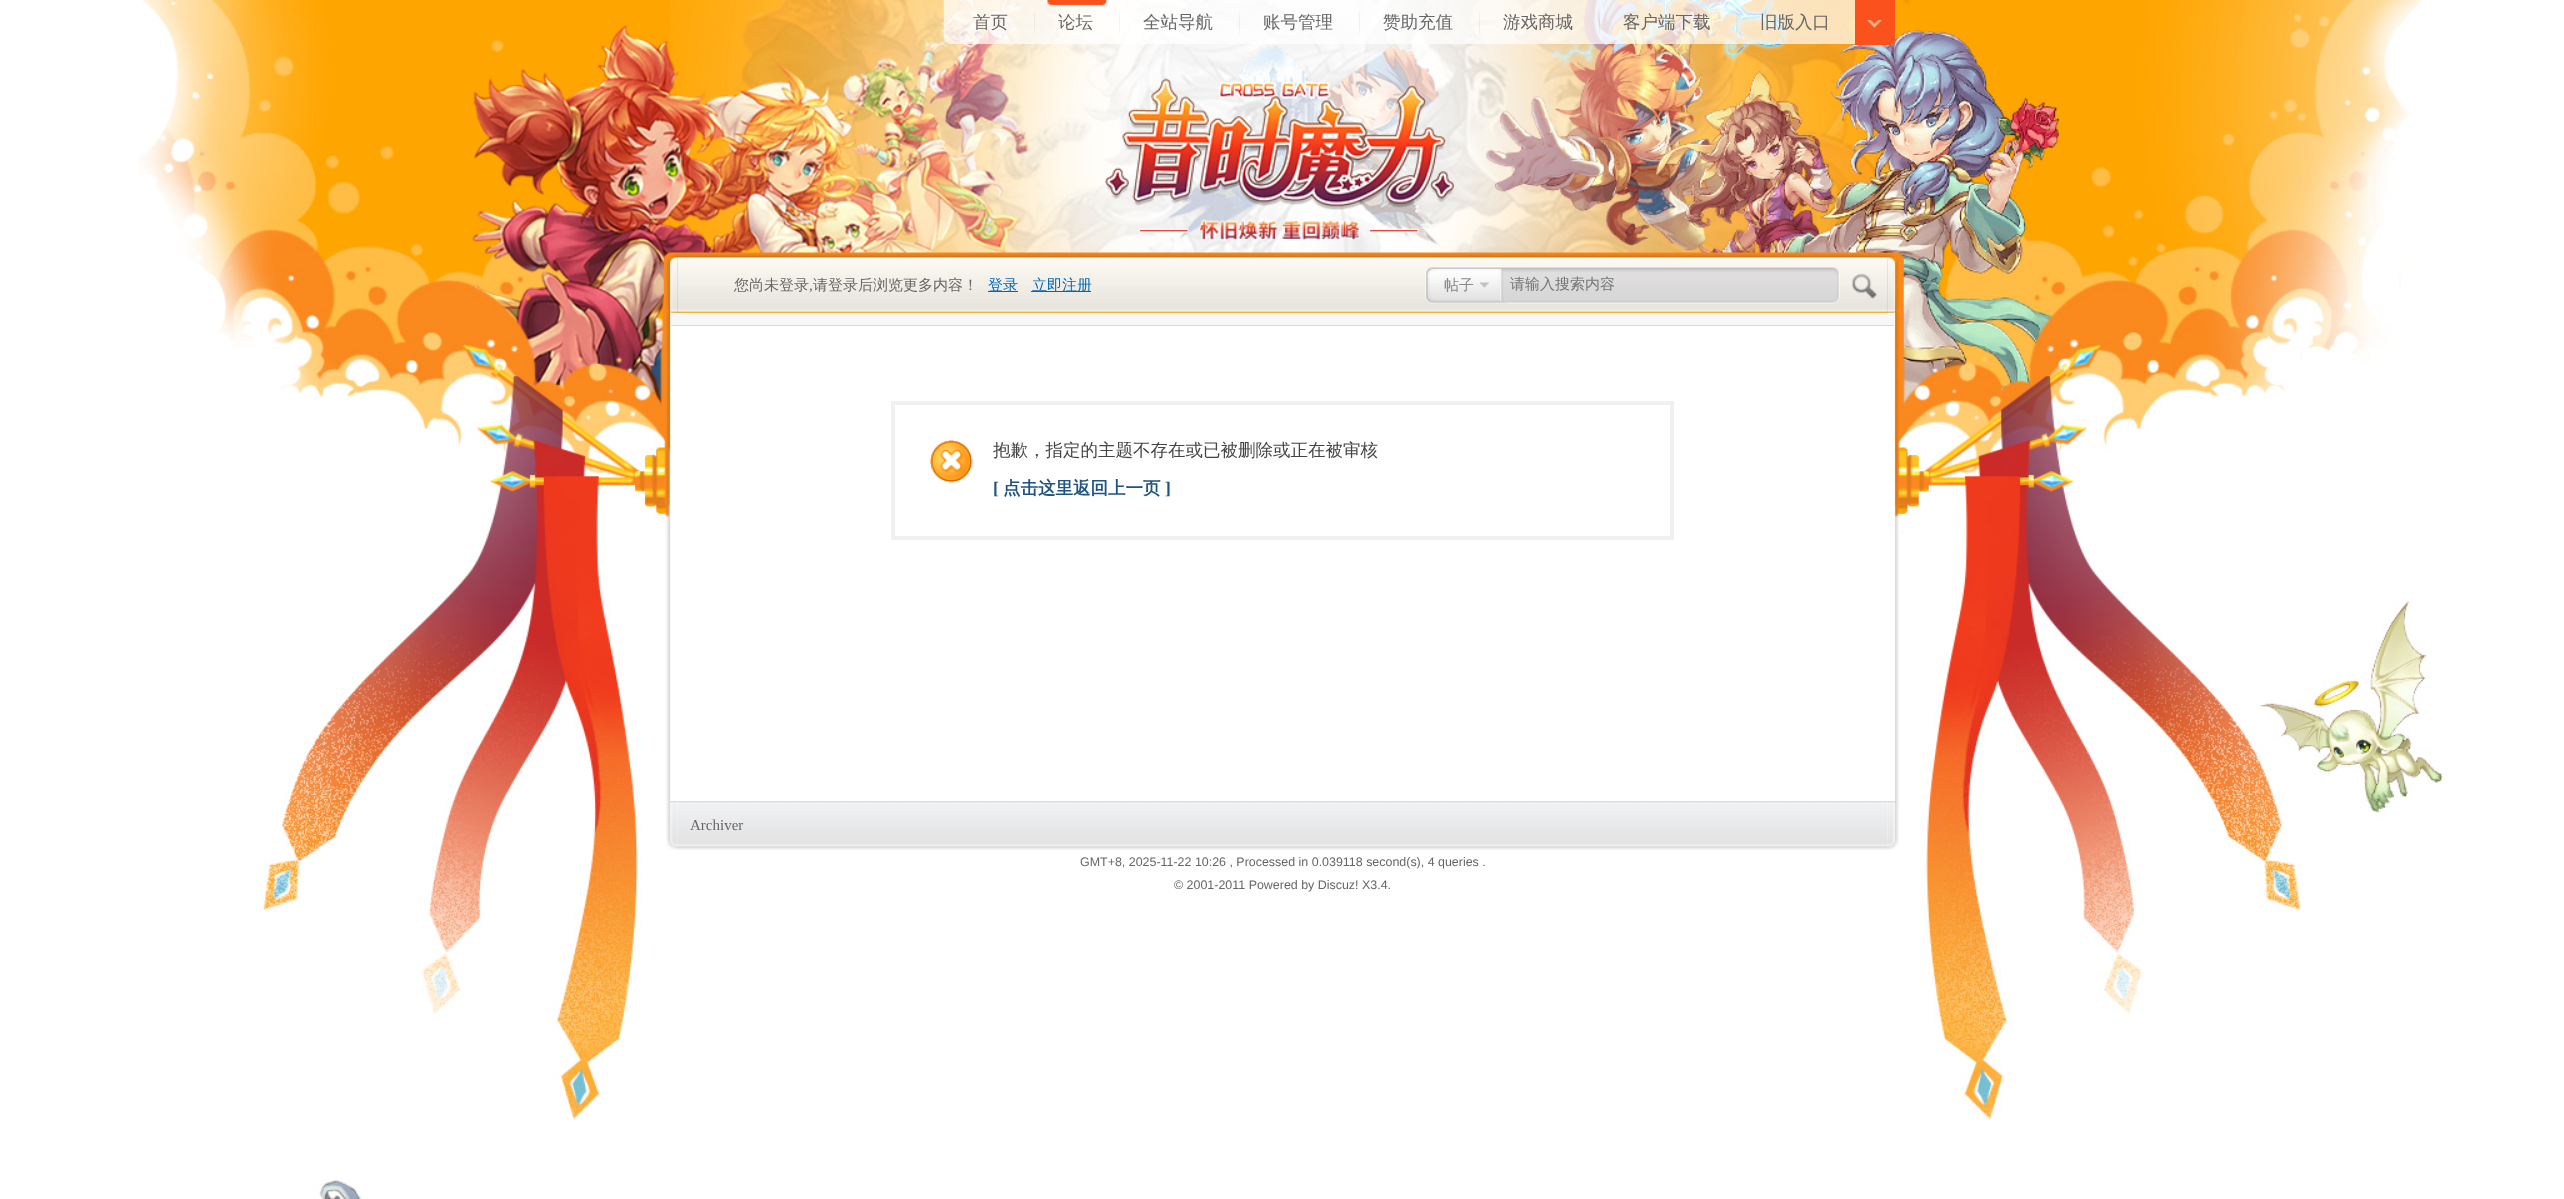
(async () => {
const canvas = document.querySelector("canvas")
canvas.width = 2564
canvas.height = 1199
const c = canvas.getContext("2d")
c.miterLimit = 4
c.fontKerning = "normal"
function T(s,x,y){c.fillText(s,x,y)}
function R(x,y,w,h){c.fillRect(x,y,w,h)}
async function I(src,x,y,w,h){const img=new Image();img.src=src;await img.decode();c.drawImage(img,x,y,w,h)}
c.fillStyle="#fff"
R(0,0,2564,1199)
await I("1.png",138,0,2305,1199)
await I("2.png",943,0,7,44)
c.fillStyle="#ffffffb3"
R(950,0,905,44)
c.font="500 17.5px WenQuanYi Zen Hei"
c.fillStyle="#666"
T("首页",973,28)
await I("3.png",1034,11,1,24)
await I("4.png",1047,0,60,6)
T("论坛",1058,28)
await I("5.png",1119,11,1,24)
T("全站导航",1143,28)
await I("6.png",1239,11,1,24)
T("账号管理",1263,28)
await I("7.png",1359,11,1,24)
T("赞助充值",1383,28)
await I("8.png",1479,11,1,24)
T("游戏商城",1503,28)
await I("9.png",1599,11,1,24)
T("客户端下载",1623,28)
await I("10.png",1736,13,2,21)
T("旧版入口",1760,28)
await I("11.png",1855,0,40,45)
await I("12.png",677,253,1211,60)
await I("13.png",1887,254,12,59)
await I("14.png",666,254,12,59)
c.font="500 15px WenQuanYi Zen Hei"
T("您尚未登录",734,290)
c.font="15px Liberation Serif"
T(",",809,290)
c.font="500 15px WenQuanYi Zen Hei"
T("请登录后浏览更多内容！",813,290)
c.fillStyle="#0068b7"
R(988,291,30,1)
T("登录",988,290)
R(1031,291,60,1)
T("立即注册",1032,290)
await I("15.png",1425,266,452,38)
await I("16.png",1480,282,9,6)
c.fillStyle="#888"
T("帖子",1444,290)
c.fillStyle="#757575"
T("请输入搜索内容",1510,289)
await I("17.png",1893,312,6,491)
await I("18.png",666,312,6,491)
c.fillStyle="#fff"
R(671,326,1223,193)
c.fillStyle="#f7f7f7"
R(671,313,1223,12)
c.fillStyle="#d9d9d9"
R(671,325,1223,1)
c.strokeStyle="#f0f0f0"
c.lineWidth=4
c.strokeRect(893,403,779,135)
await I("19.png",930,440,43,43)
c.font="500 17.5px WenQuanYi Zen Hei"
c.fillStyle="#444"
T("抱歉，指定的主题不存在或已被删除或正在被审核",993,456)
c.font="bold 17.5px Liberation Serif"
c.fillStyle="#1e547f"
T("[",993,494)
c.font="bold 17.5px WenQuanYi Zen Hei"
T("点击这里返回上一页",1003,494)
c.font="bold 17.5px Liberation Serif"
T("]",1165,494)
await I("20.png",677,801,1211,49)
await I("21.png",1887,801,12,49)
await I("22.png",666,801,12,49)
c.font="15px Liberation Serif"
c.fillStyle="#666"
T("Archiver",690,830)
c.font="12.45px Liberation Sans"
T("GMT+8, 2025-11-22 10:26 , Processed in 0.039118 second(s), 4 queries .",1080,866)
T("© 2001-2011 Powered by Discuz! X3.4.",1174,889)
})()
